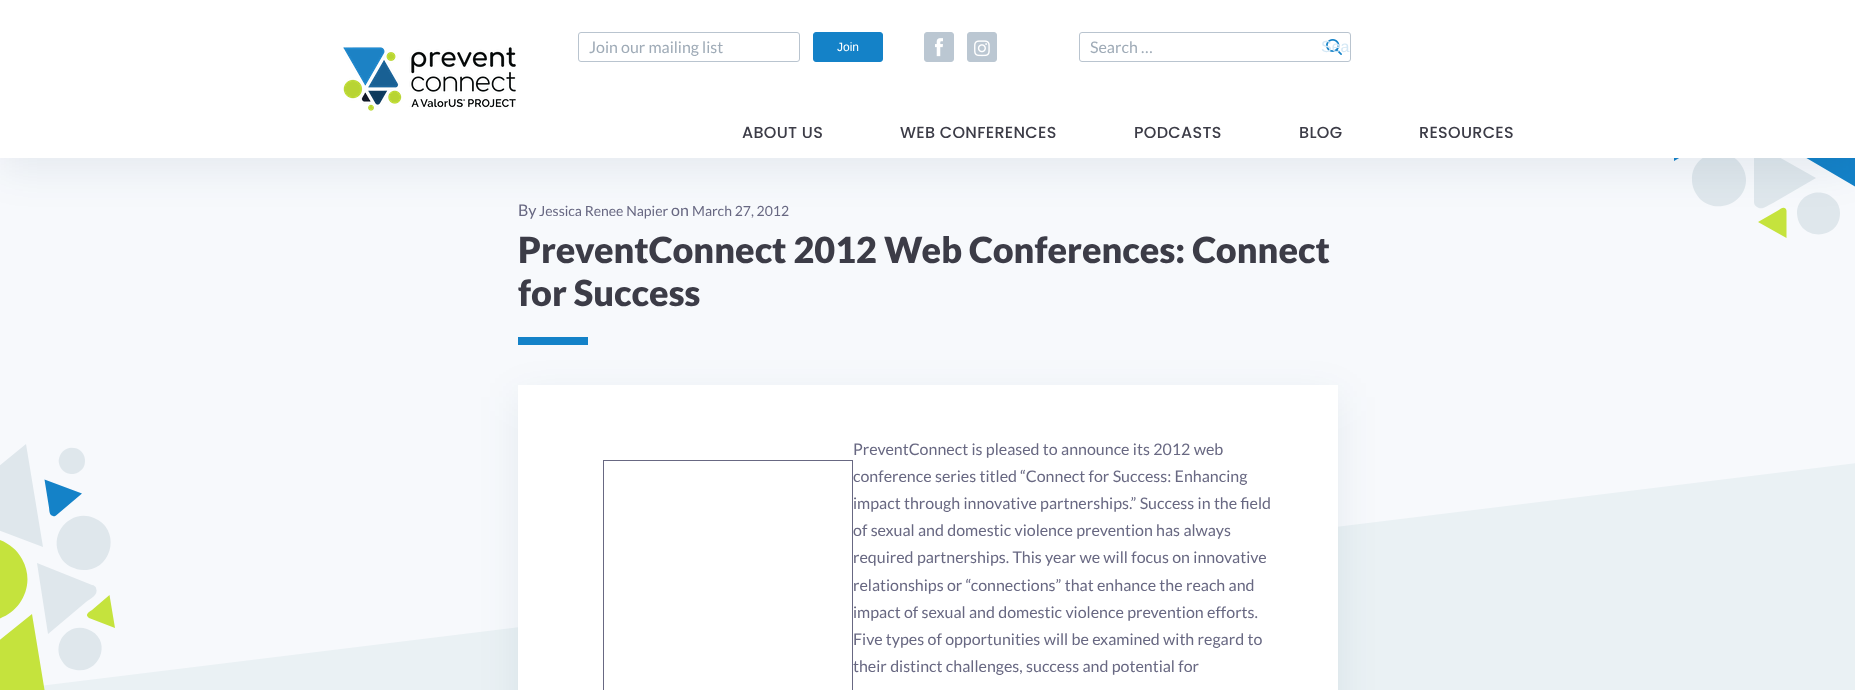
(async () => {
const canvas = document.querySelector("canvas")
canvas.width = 1855
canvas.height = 690
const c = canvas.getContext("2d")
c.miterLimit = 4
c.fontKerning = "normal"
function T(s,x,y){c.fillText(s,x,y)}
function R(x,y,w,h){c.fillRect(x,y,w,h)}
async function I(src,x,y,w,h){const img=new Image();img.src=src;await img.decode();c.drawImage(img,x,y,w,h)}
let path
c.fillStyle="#f7f9fc"
R(0,0,1855,690)
c.fillStyle="#dfe7ec"
path = new Path2D("M1746 180c0-7-3-13-7-18c-16-18-48-7-47 18c0 7 3 13 8 19c17 16 46 4 46-19z")
c.fill(path)
c.fillStyle="#1482c8"
path = new Path2D("M1703 144c1 0 1-1 2-2c1-4-5-6-7-7l-24-14v40z")
c.fill(path)
path = new Path2D("M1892 121c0-3-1-5-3-7c-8-6-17 3-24 6l-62 36l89 52z")
c.fill(path)
c.fillStyle="#c5e33d"
path = new Path2D("M1786.5 211c0-1-.5-2-1-2.5c-2.5-2-5.5 1-7.5 2l-20 11.5l28.5 16z")
c.fill(path)
c.fillStyle="#dfe7ec"
path = new Path2D("M1840 213c0-5-2-10-5-13c-13-15-38-6-38 13c1 29 43 28 43 0z")
c.fill(path)
path = new Path2D("M1754 202c0 2 1 4 3 5c5 4 11-2 16-4l43-25l-62-35z")
c.fill(path)
c.fillStyle="#11395b14"
c.filter="blur(20px)"
c.beginPath()
c.rect(0,12,1855,158)
c.fill()
c.filter="none"
c.fillStyle="#fff"
R(0,0,1855,158)
await I("1.png",343,47,173,64)
c.beginPath()
c.roundRect(578.5,32.5,221,29,2.5)
c.strokeStyle="#b9c4cf"
c.stroke()
c.font="16px Lato"
c.fillStyle="#9fabb7"
T("Join our mailing list",589,53)
c.fillStyle="#1482c8"
c.beginPath()
c.roundRect(813.5,32.5,69,29,2.5)
c.fill()
c.strokeStyle="#1482c8"
c.stroke()
c.font="12px Liberation Sans"
c.fillStyle="#fff"
T("Join",837,51)
c.fillStyle="#bbc7d2"
c.beginPath()
c.roundRect(924.5,32.5,29,29,2.5)
c.fill()
c.strokeStyle="#bbc7d2"
c.stroke()
await I("2.png",935,38,8,19)
c.beginPath()
c.roundRect(967.5,32.5,29,29,2.5)
c.fill()
c.stroke()
await I("3.png",974,40,16,17)
c.beginPath()
c.roundRect(1079.5,32.5,271,29,2.5)
c.strokeStyle="#b9c4cf"
c.stroke()
c.font="16px Lato"
c.fillStyle="#9fabb7"
T("Search …",1090,53)
await I("4.png",1326,39,16,16)
c.font="16px Liberation Sans"
c.fillStyle="#d4e8f5"
T("Sea",1321,52)
c.letterSpacing="0.3px"
c.font="500 16px Poppins"
c.fillStyle="#3c3c47"
T("ABOUT US",742,138)
T("WEB CONFERENCES",900,138)
T("PODCASTS",1134,138)
T("BLOG",1299,138)
T("RESOURCES",1419,138)
c.fillStyle="#eaf1f4"
path = new Path2D("M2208 420v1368l-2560-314v-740z")
c.fill(path)
c.fillStyle="#c5e33d"
path = new Path2D("M-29 618c-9-3-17-10-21-19c-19-33 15-72 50-59c10 4 17 10 22 19c19 34-15 73-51 59z")
c.fill(path)
c.fillStyle="#dfe7ec"
path = new Path2D("M-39 516c-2-1-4-3-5-5c-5-10 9-16 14-21l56-46l17 103z")
c.fill(path)
await I("5.png",58,447,27,27)
path = new Path2D("M74 568c-6-2-11-6-14-12c-12-22 11-48 34-38c26 10 20 49-7 52c-5 0-9 0-13-2z")
c.fill(path)
c.fillStyle="#1482c8"
path = new Path2D("M56 515.5c-.5 .5-2 1-3 .5c-4-1-3.5-5.5-4-8.5l-4.5-28l37.5 14z")
c.fill(path)
c.fillStyle="#c5e33d"
path = new Path2D("M-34 685c-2-1-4-2-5-5c-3-10 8-15 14-20l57-46l17 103z")
c.fill(path)
c.fillStyle="#dfe7ec"
path = new Path2D("M72 669c-4-1-8-4-10-8c-11-17 6-39 25-32c28 10 12 49-15 40z")
c.fill(path)
c.fillStyle="#c5e33d"
path = new Path2D("M89 618l-1.5-1.5c-2-3 3-5.5 4.5-6.5l17.5-15l5.5 33z")
c.fill(path)
c.fillStyle="#dfe7ec"
path = new Path2D("M92 585c2 0 4 2 4 3c3 7-6 11-10 14l-38 32l-11-71z")
c.fill(path)
c.letterSpacing="0px"
c.font="16px Lato"
c.fillStyle="#686882"
T("By",518,216)
c.font="14px Lato"
T("Jessica Renee Napier",539,216)
c.font="16px Lato"
T("on",671,216)
c.font="14px Lato"
T("March 27, 2012",692,216)
c.font="900 36px Lato"
c.fillStyle="#3c3c47"
T("PreventConnect 2012 Web Conferences: Connect",518,263)
T("for Success",518,306)
c.fillStyle="#11395b14"
c.filter="blur(20px)"
c.beginPath()
c.rect(518,397,820,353)
c.fill()
c.filter="none"
c.fillStyle="#1482c8"
R(518,337,70,8)
c.fillStyle="#fff"
R(518,385,820,305)
c.strokeStyle="#686882"
c.strokeRect(603.5,460.5,249,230)
c.wordSpacing="0.25px"
c.font="16px Lato"
c.fillStyle="#686882"
T("PreventConnect is pleased to announce its 2012 web",853,455)
T("conference series titled “Connect for Success: Enhancing",853,482)
T("impact through innovative partnerships.” Success in the field",853,509)
T("of sexual and domestic violence prevention has always",853,536)
T("required partnerships. This year we will focus on innovative",853,563)
T("relationships or “connections” that enhance the reach and",853,591)
T("impact of sexual and domestic violence prevention efforts.",853,618)
T("Five types of opportunities will be examined with regard to",853,645)
T("their distinct challenges, success and potential for",853,672)
})()
